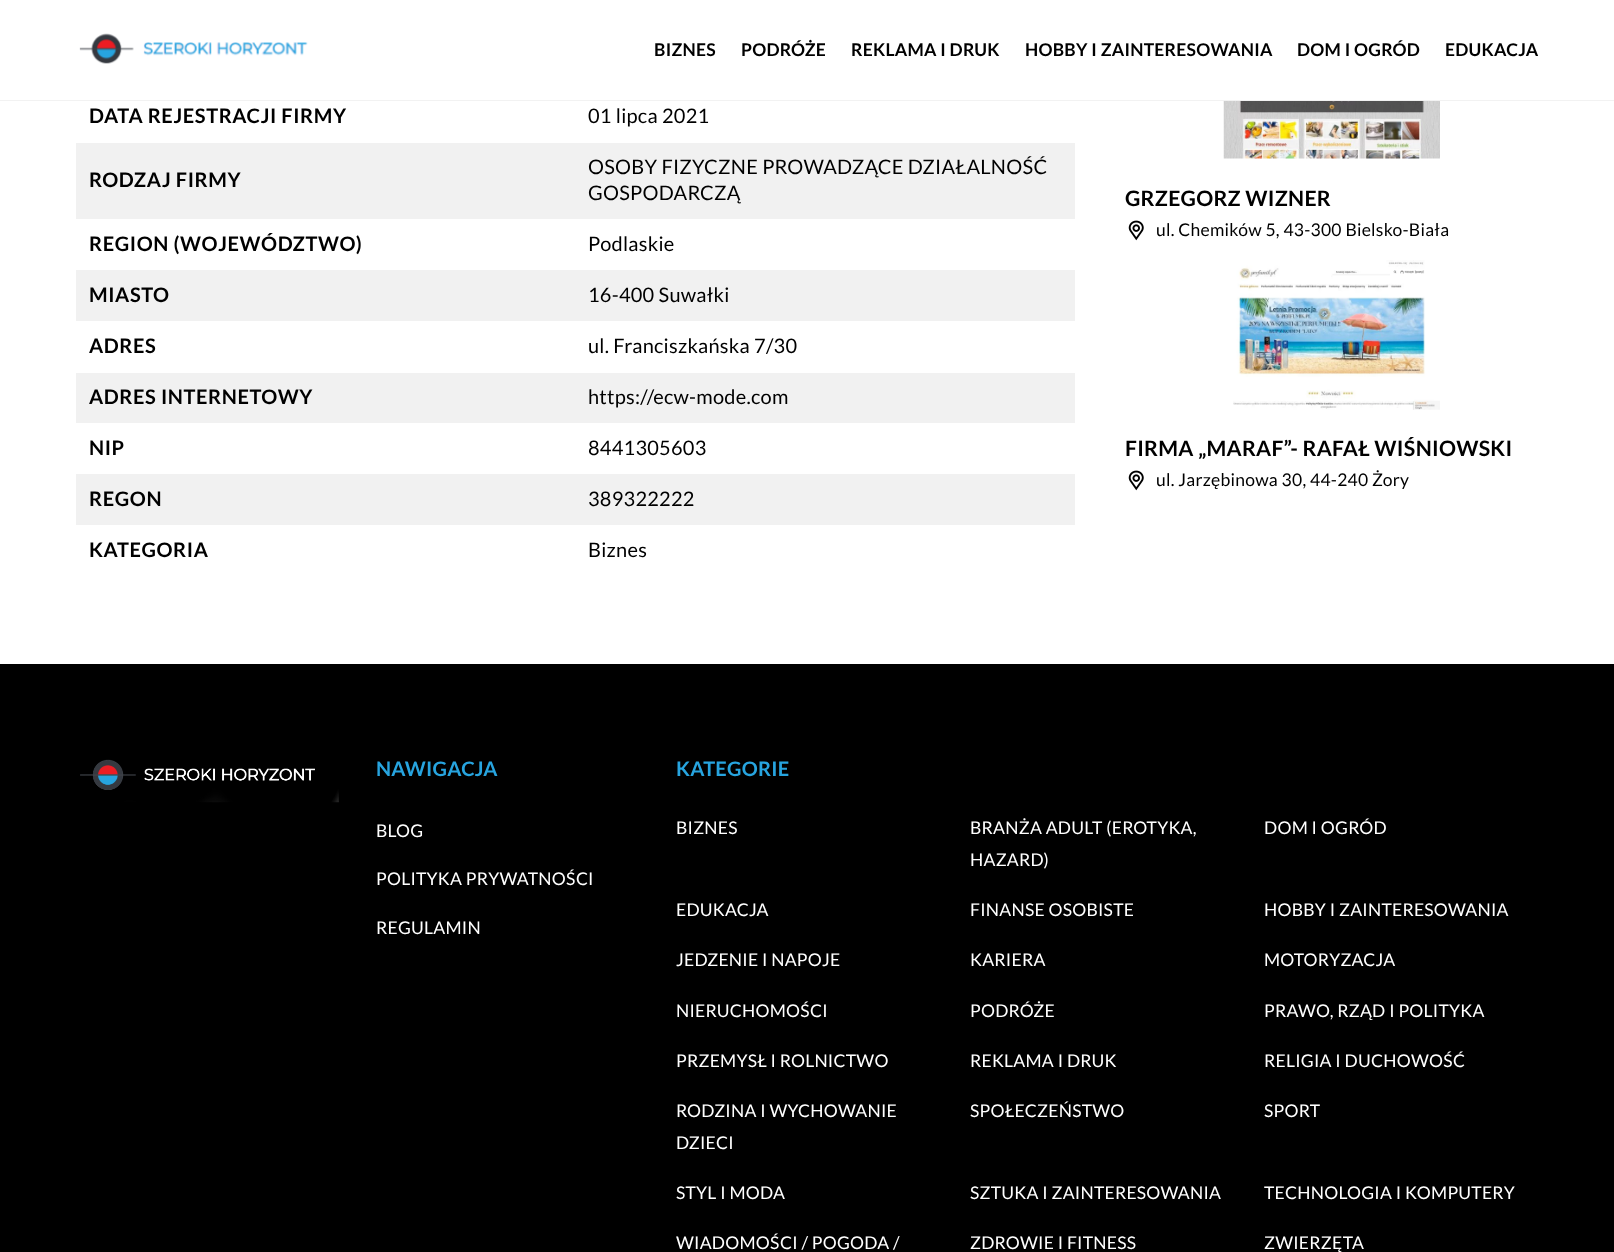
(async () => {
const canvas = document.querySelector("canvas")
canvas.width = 1614
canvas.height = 1252
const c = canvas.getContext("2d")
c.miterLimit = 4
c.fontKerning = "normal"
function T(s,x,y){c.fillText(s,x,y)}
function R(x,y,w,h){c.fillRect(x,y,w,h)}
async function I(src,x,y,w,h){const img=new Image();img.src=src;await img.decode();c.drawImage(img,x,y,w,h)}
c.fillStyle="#fff"
R(0,0,1614,1252)
c.fillStyle="#f2f2f2"
R(0,100,1614,1)
await I("1.png",79,33,229,31)
c.letterSpacing="0.25px"
c.font="bold 17.5px Lato"
c.fillStyle="#000"
T("BIZNES",654,56)
T("PODRÓŻE",741,56)
T("REKLAMA I DRUK",851,56)
T("HOBBY I ZAINTERESOWANIA",1025,56)
T("DOM I OGRÓD",1297,56)
T("EDUKACJA",1445,56)
c.letterSpacing="0.6px"
c.font="bold 20px Lato"
T("DATA REJESTRACJI FIRMY",89,123)
c.letterSpacing="0.25px"
c.font="20px Lato"
T("01 lipca 2021",588,123)
c.fillStyle="#f1f1f1"
R(76,143,999,76)
c.letterSpacing="0.6px"
c.font="bold 20px Lato"
c.fillStyle="#000"
T("RODZAJ FIRMY",89,187)
c.letterSpacing="0.25px"
c.font="20px Lato"
T("OSOBY FIZYCZNE PROWADZĄCE DZIAŁALNOŚĆ",588,174)
T("GOSPODARCZĄ",588,200)
c.letterSpacing="0.6px"
c.font="bold 20px Lato"
T("REGION (WOJEWÓDZTWO)",89,251)
c.letterSpacing="0.25px"
c.font="20px Lato"
T("Podlaskie",588,251)
c.fillStyle="#f1f1f1"
R(76,270,999,51)
c.letterSpacing="0.6px"
c.font="bold 20px Lato"
c.fillStyle="#000"
T("MIASTO",89,302)
c.letterSpacing="0.25px"
c.font="20px Lato"
T("16-400 Suwałki",588,302)
c.letterSpacing="0.6px"
c.font="bold 20px Lato"
T("ADRES",89,353)
c.letterSpacing="0.25px"
c.font="20px Lato"
T("ul. Franciszkańska 7/30",588,353)
c.fillStyle="#f1f1f1"
R(76,373,999,50)
c.letterSpacing="0.6px"
c.font="bold 20px Lato"
c.fillStyle="#000"
T("ADRES INTERNETOWY",89,404)
c.letterSpacing="0.25px"
c.font="20px Lato"
T("https://ecw-mode.com",588,404)
c.letterSpacing="0.6px"
c.font="bold 20px Lato"
T("NIP",89,455)
c.letterSpacing="0.25px"
c.font="20px Lato"
T("8441305603",588,455)
c.fillStyle="#f1f1f1"
R(76,474,999,51)
c.letterSpacing="0.6px"
c.font="bold 20px Lato"
c.fillStyle="#000"
T("REGON",89,506)
c.letterSpacing="0.25px"
c.font="20px Lato"
T("389322222",588,506)
c.letterSpacing="0.6px"
c.font="bold 20px Lato"
T("KATEGORIA",89,557)
c.letterSpacing="0.25px"
c.font="20px Lato"
T("Biznes",588,557)
await I("2.png",1223,101,217,58)
c.font="bold 21.25px Lato"
T("GRZEGORZ WIZNER",1125,206)
await I("3.png",1128,220,16,21)
c.font="17.5px Lato"
T("ul. Chemików 5, 43-300 Bielsko-Biała",1156,236)
await I("4.png",1233,260,207,150)
c.font="bold 21.25px Lato"
T("FIRMA „MARAF”- RAFAŁ WIŚNIOWSKI",1125,456)
await I("3.png",1128,470,16,21)
c.font="17.5px Lato"
T("ul. Jarzębinowa 30, 44-240 Żory",1156,486)
R(0,664,1614,588)
await I("5.png",80,759,259,44)
c.font="bold 20px Lato"
c.fillStyle="#27a4df"
T("NAWIGACJA",376,776)
c.font="17.5px Lato"
c.fillStyle="#fff"
T("BLOG",376,837)
T("POLITYKA PRYWATNOŚCI",376,885)
T("REGULAMIN",376,934)
c.font="bold 20px Lato"
c.fillStyle="#27a4df"
T("KATEGORIE",676,776)
c.font="17.5px Lato"
c.fillStyle="#fff"
T("BIZNES",676,834)
T("BRANŻA ADULT (EROTYKA,",970,834)
T("HAZARD)",970,866)
T("DOM I OGRÓD",1264,834)
T("EDUKACJA",676,916)
T("FINANSE OSOBISTE",970,916)
T("HOBBY I ZAINTERESOWANIA",1264,916)
T("JEDZENIE I NAPOJE",676,966)
T("KARIERA",970,966)
T("MOTORYZACJA",1264,966)
T("NIERUCHOMOŚCI",676,1017)
T("PODRÓŻE",970,1017)
T("PRAWO, RZĄD I POLITYKA",1264,1017)
T("PRZEMYSŁ I ROLNICTWO",676,1067)
T("REKLAMA I DRUK",970,1067)
T("RELIGIA I DUCHOWOŚĆ",1264,1067)
T("RODZINA I WYCHOWANIE",676,1117)
T("DZIECI",676,1149)
T("SPOŁECZEŃSTWO",970,1117)
T("SPORT",1264,1117)
T("STYL I MODA",676,1199)
T("SZTUKA I ZAINTERESOWANIA",970,1199)
T("TECHNOLOGIA I KOMPUTERY",1264,1199)
T("WIADOMOŚCI / POGODA /",676,1249)
T("ZDROWIE I FITNESS",970,1249)
T("ZWIERZĘTA",1264,1249)
})()
